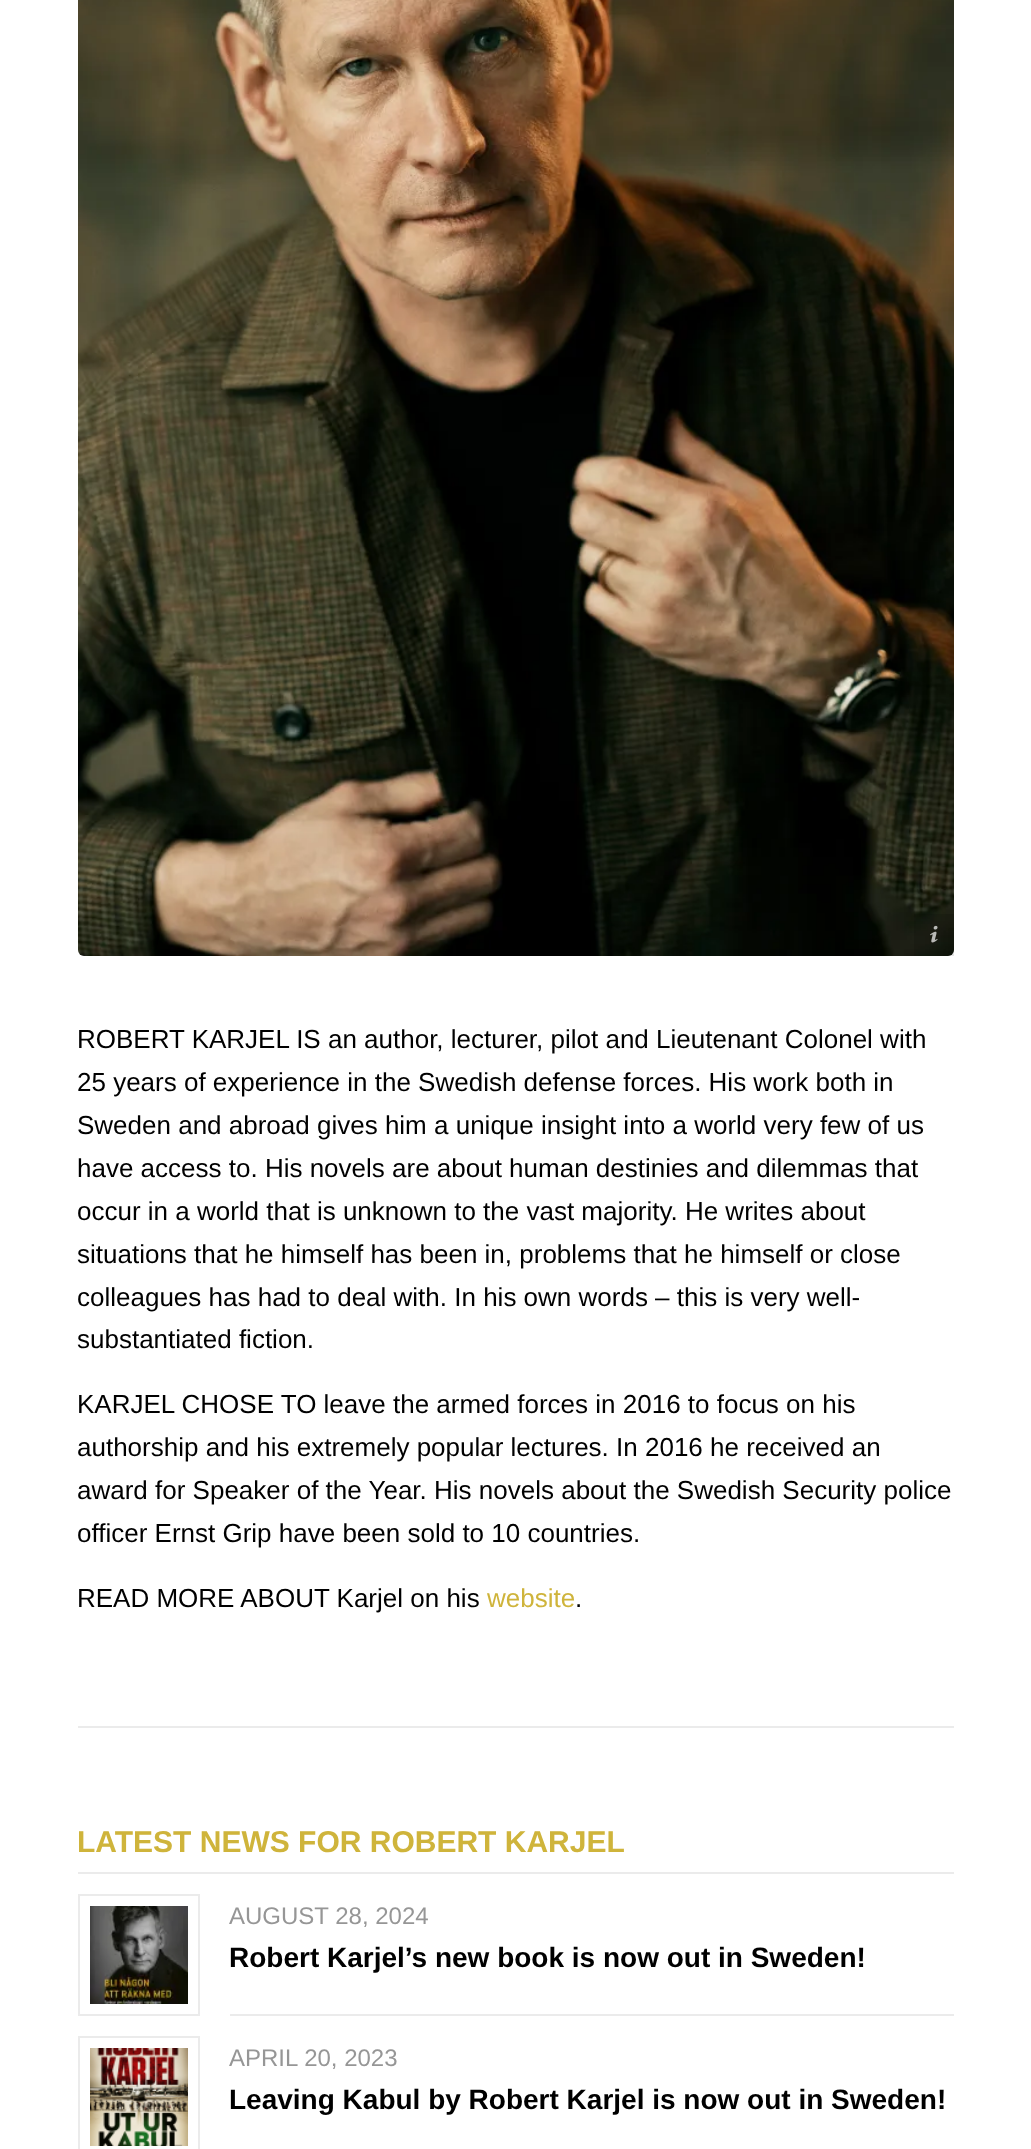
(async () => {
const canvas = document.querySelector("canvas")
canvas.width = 1031
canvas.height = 2149
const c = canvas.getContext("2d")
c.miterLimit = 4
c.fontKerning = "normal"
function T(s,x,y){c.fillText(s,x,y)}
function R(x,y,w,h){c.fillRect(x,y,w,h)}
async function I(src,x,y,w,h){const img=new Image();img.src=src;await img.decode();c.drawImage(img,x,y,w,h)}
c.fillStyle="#fff"
R(0,0,1031,2149)
await I("1.png",78,0,876,956)
c.fillStyle="#0000001a"
R(914,914,40,42)
await I("2.png",930,925,8,18)
c.font="26px Liberation Sans"
c.fillStyle="#000"
T("ROBERT KARJEL IS an author, lecturer, pilot and Lieutenant Colonel with",77,1048)
T("25 years of experience in the Swedish defense forces. His work both in",77,1091)
T("Sweden and abroad gives him a unique insight into a world very few of us",77,1134)
T("have access to. His novels are about human destinies and dilemmas that",77,1177)
T("occur in a world that is unknown to the vast majority. He writes about",77,1220)
T("situations that he himself has been in, problems that he himself or close",77,1263)
T("colleagues has had to deal with. In his own words – this is very well-",77,1306)
T("substantiated fiction.",77,1348)
T("KARJEL CHOSE TO leave the armed forces in 2016 to focus on his",77,1413)
T("authorship and his extremely popular lectures. In 2016 he received an",77,1456)
T("award for Speaker of the Year. His novels about the Swedish Security police",77,1499)
T("officer Ernst Grip have been sold to 10 countries.",77,1542)
T("READ MORE ABOUT Karjel on his",77,1607)
c.fillStyle="#cfb43b"
T("website",487,1607)
c.fillStyle="#000"
T(".",575,1607)
c.fillStyle="#ebebeb"
R(78,1726,876,2)
R(78,1872,876,2)
c.font="bold 30px Liberation Sans"
c.fillStyle="#cfb43b"
T("LATEST NEWS FOR ROBERT KARJEL",77,1852)
c.strokeStyle="#ebebeb"
c.lineWidth=2
c.strokeRect(79,1895,120,120)
await I("3.png",90,1906,98,98)
c.fillStyle="#ebebeb"
R(230,2014,724,2)
c.font="24px Liberation Sans"
c.fillStyle="#969696"
T("AUGUST 28, 2024",229,1924)
c.font="bold 28px Liberation Sans"
c.fillStyle="#000"
T("Robert Karjel’s new book is now out in Sweden!",229,1967)
c.strokeRect(79,2037,120,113)
await I("4.png",90,2048,98,98)
c.font="24px Liberation Sans"
c.fillStyle="#969696"
T("APRIL 20, 2023",229,2066)
c.font="bold 28px Liberation Sans"
c.fillStyle="#000"
T("Leaving Kabul by Robert Karjel is now out in Sweden!",229,2109)
})()
